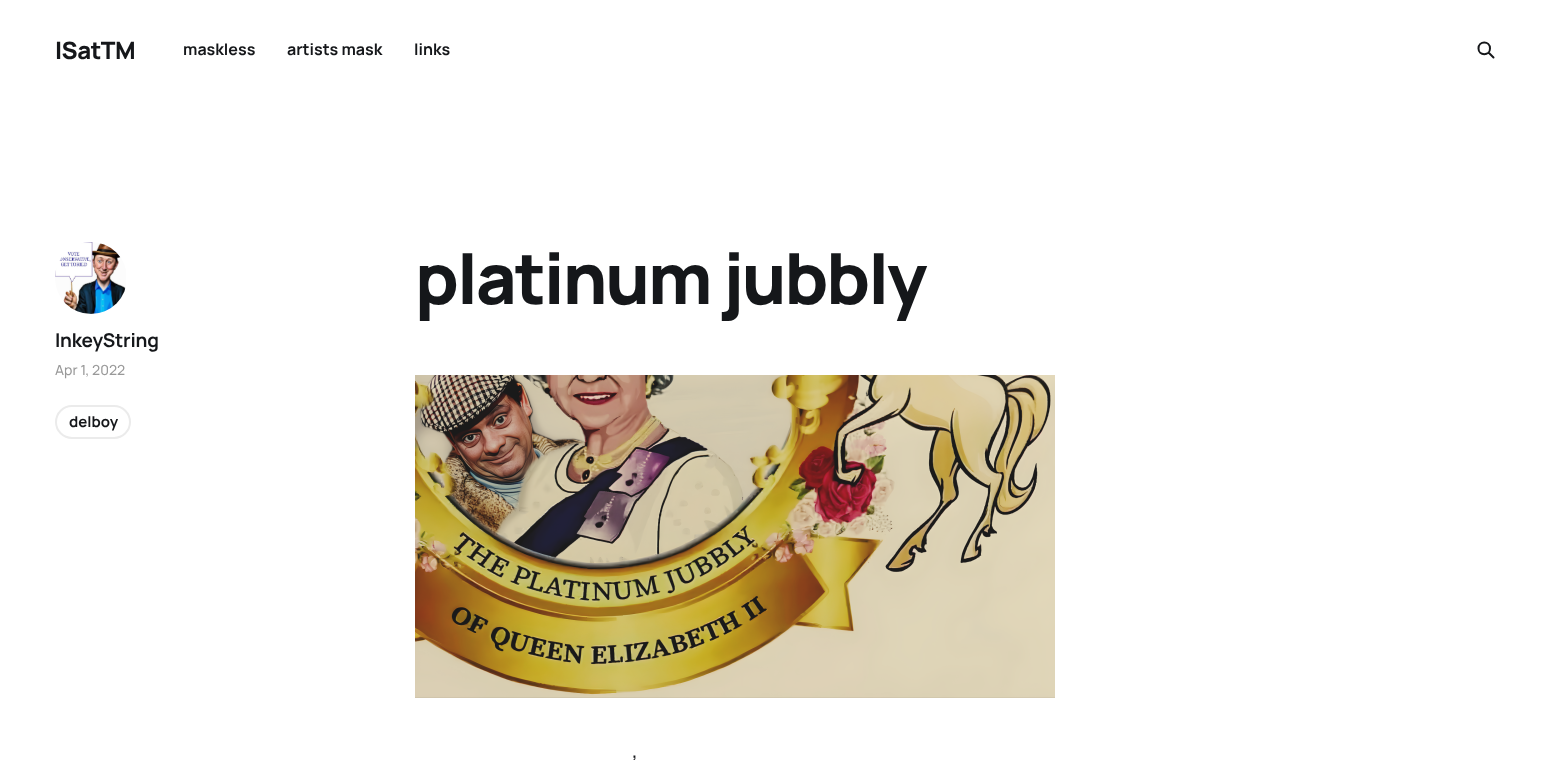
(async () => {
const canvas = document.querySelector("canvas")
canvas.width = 1549
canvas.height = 765
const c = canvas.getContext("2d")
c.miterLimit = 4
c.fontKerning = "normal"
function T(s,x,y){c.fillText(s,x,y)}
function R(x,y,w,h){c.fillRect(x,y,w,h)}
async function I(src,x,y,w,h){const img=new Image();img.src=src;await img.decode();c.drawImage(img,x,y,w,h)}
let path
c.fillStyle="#fff"
R(0,0,1549,765)
c.letterSpacing="-0.5px"
c.font="800 24px Manrope"
c.fillStyle="#15171a"
T("ISatTM",55,59)
c.letterSpacing="0px"
c.font="bold 16px Manrope"
T("maskless",183,55)
T("artists mask",287,55)
T("links",414,55)
path = new Path2D("M1493.5 57.5l-5-5zm-3.5-9c0 7.5-11.5 7.5-11.5 0c0-8 11.5-8 11.5 0z")
c.strokeStyle="#15171a"
c.lineWidth=2
c.lineCap="round"
c.lineJoin="round"
c.stroke(path)
c.letterSpacing="-2.1px"
c.font="800 70.5px Manrope"
T("platinum jubbly",415,304)
await I("1.png",55,242,71,72)
c.letterSpacing="-0.25px"
c.font="bold 19px Manrope"
T("InkeyString",55,347)
c.letterSpacing="0px"
c.font="500 14px Manrope"
c.fillStyle="#999"
T("Apr 1, 2022",55,375)
c.beginPath()
c.roundRect(56,406,74,32,16)
c.strokeStyle="#ebebeb"
c.lineJoin="miter"
c.stroke()
c.font="bold 15px Manrope"
c.fillStyle="#15171a"
T("delboy",69,427)
await I("2.png",415,375,640,323)
c.font="500 20px Manrope"
T("’",632,770)
})()
